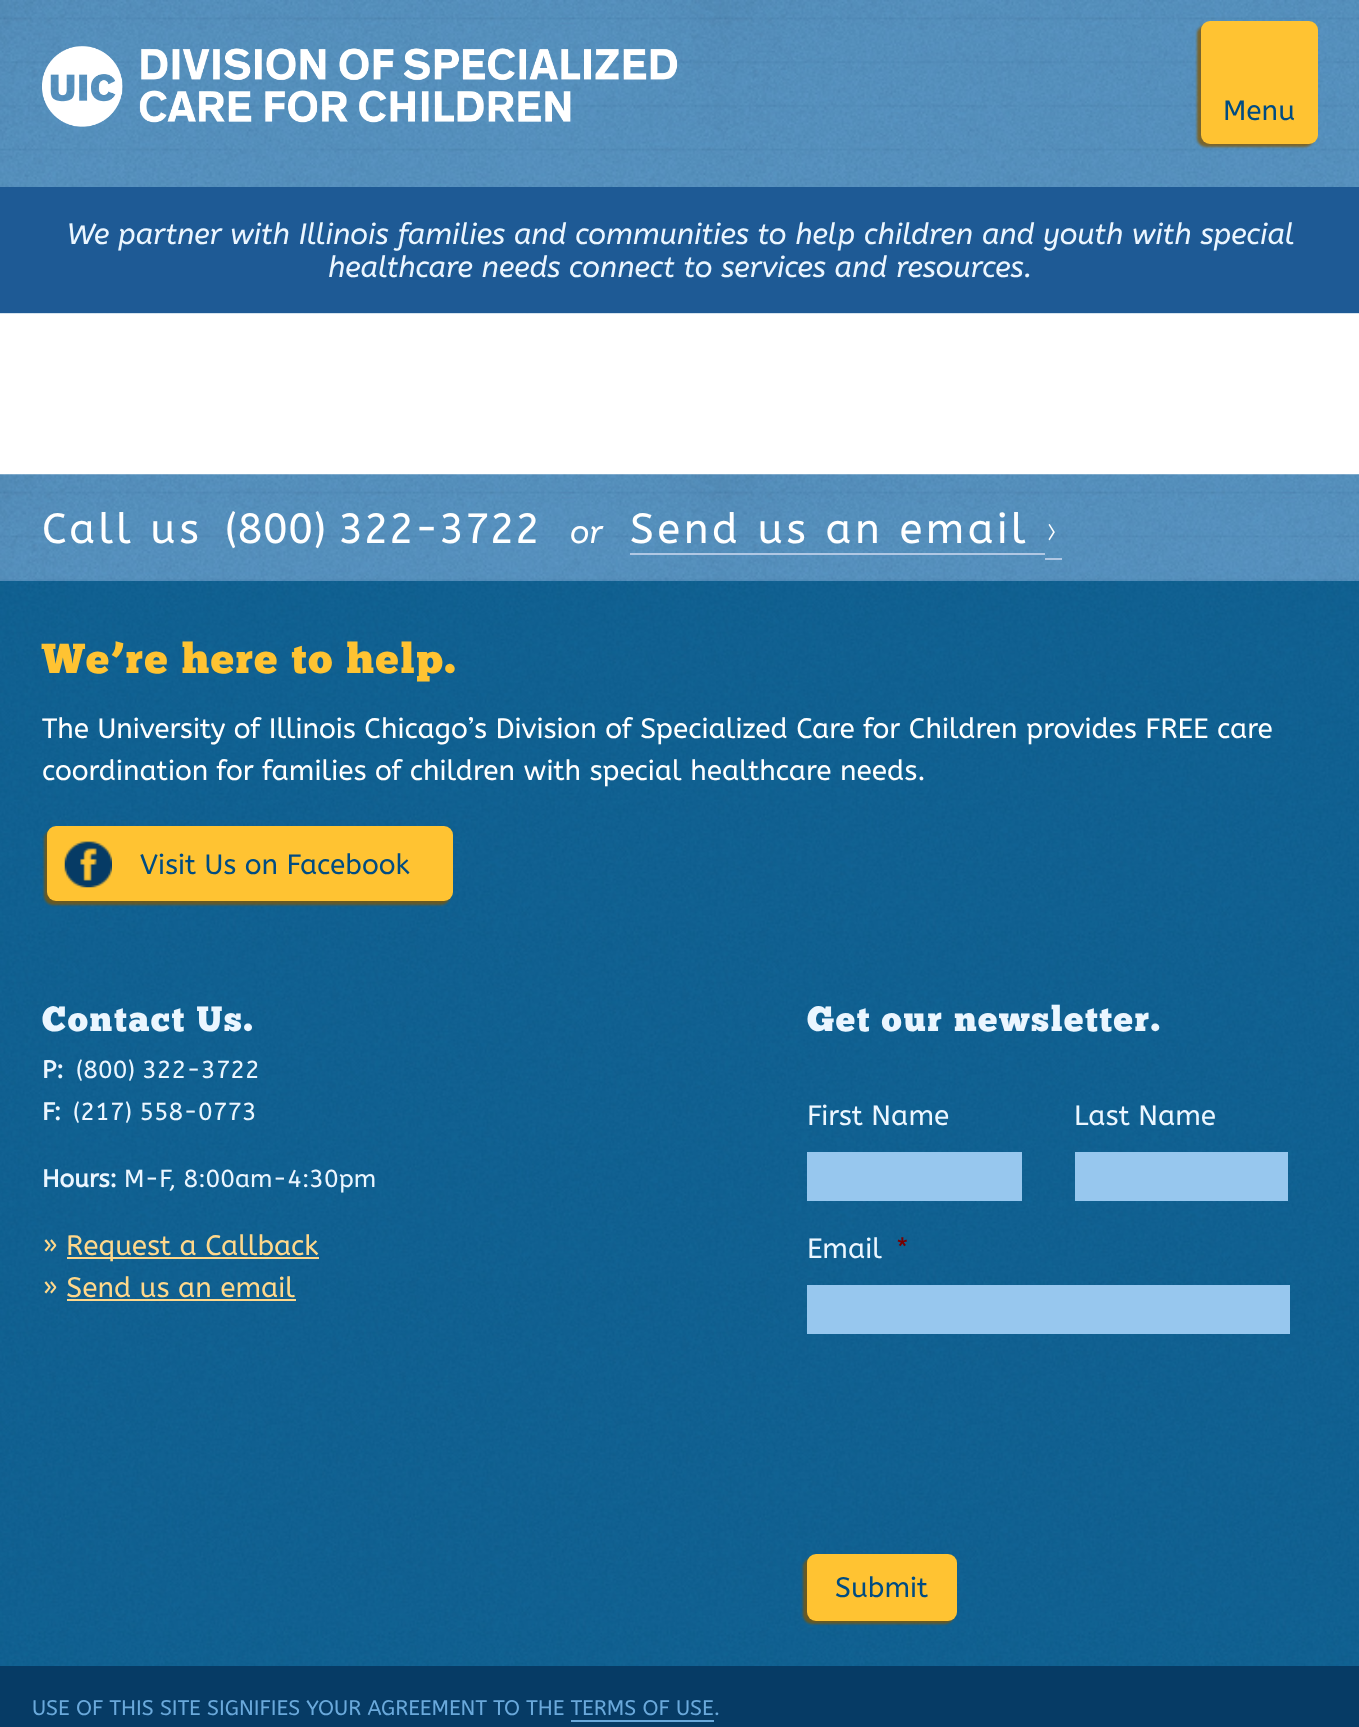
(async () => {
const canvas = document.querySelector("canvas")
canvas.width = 1359
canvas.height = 1727
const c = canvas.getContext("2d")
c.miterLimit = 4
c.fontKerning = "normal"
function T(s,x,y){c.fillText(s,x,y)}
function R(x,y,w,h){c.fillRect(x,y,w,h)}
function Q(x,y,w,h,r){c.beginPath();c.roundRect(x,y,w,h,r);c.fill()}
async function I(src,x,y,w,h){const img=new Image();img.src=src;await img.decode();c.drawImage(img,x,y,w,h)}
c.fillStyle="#fff"
R(0,0,1359,1727)
await I("1.png",0,0,1359,314)
await I("2.png",42,46,636,81)
c.fillStyle="#845700bf"
c.filter="blur(1px)"
c.beginPath()
c.roundRect(1197,25,117,122,9)
c.fill()
c.filter="none"
c.fillStyle="#ffc332"
Q(1201,21,117,123,9)
c.font="28px ABeeZee"
c.fillStyle="#004c82"
T("Menu",1223,120)
c.fillStyle="#1e5a95"
R(0,187,1359,126)
c.font="italic 29.4px ABeeZee"
c.fillStyle="#ebf6ff"
T("We partner with Illinois families and communities to help children and youth with special",67,244)
T("healthcare needs connect to services and resources.",328,277)
await I("3.png",0,474,1359,107)
c.letterSpacing="3.5px"
c.font="42px ABeeZee"
c.fillStyle="#fff"
T("Call us",42,543)
c.letterSpacing="0px"
T("(800) 322-3722",225,543)
c.font="italic 32px ABeeZee"
T("or",570,543)
c.fillStyle="#b1c8e4"
R(630,553,415,2)
R(1045,558,17,2)
c.letterSpacing="3.5px"
c.font="42px ABeeZee"
c.fillStyle="#fff"
T("Send us an email",630,543)
c.font="300 42px Lato"
T("›",1045,543)
await I("4.png",0,581,1359,1085)
c.letterSpacing="1.75px"
c.font="42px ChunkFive"
c.fillStyle="#ffc332"
T("We’re here to help.",42,673)
c.letterSpacing="0px"
c.font="28px ABeeZee"
c.fillStyle="#fff"
T("The University of Illinois Chicago’s Division of Specialized Care for Children provides FREE care",42,738)
T("coordination for families of children with special healthcare needs.",42,780)
c.fillStyle="#845700bf"
c.filter="blur(1px)"
c.beginPath()
c.roundRect(44,830,406,75,9)
c.fill()
c.filter="none"
c.fillStyle="#ffc332"
Q(47,826,406,75,9)
await I("5.png",64,841,48,47)
c.fillStyle="#004c82"
T("Visit Us on Facebook",140,874)
c.letterSpacing="1.75px"
c.font="35px ChunkFive"
c.fillStyle="#ebf6ff"
T("Contact Us.",42,1031)
c.letterSpacing="0px"
c.font="bold 24.5px ABeeZee"
T("P:",42,1078)
c.font="24.5px ABeeZee"
T("(800) 322-3722",76,1078)
c.font="bold 24.5px ABeeZee"
T("F:",42,1120)
c.font="24.5px ABeeZee"
T("(217) 558-0773",73,1120)
c.font="bold 24.5px ABeeZee"
T("Hours:",42,1187)
c.font="24.5px ABeeZee"
T("M-F, 8:00am-4:30pm",124,1187)
c.font="28px ABeeZee"
c.fillStyle="#ffd88b"
T("»",42,1255)
R(67,1257,252,2)
T("Request a Callback",66,1255)
T("» Send us an email",42,1297)
R(67,1299,229,2)
c.letterSpacing="1.75px"
c.font="35px ChunkFive"
c.fillStyle="#ebf6ff"
T("Get our newsletter.",807,1031)
c.letterSpacing="0px"
c.font="28px ABeeZee"
T("First Name",807,1125)
c.fillStyle="#97c7ee"
R(807,1152,215,49)
c.fillStyle="#ebf6ff"
T("Last Name",1074,1125)
c.fillStyle="#97c7ee"
R(1075,1152,213,49)
c.fillStyle="#ebf6ff"
T("Email",807,1258)
c.fillStyle="#790000"
T("*",896,1258)
c.fillStyle="#97c7ee"
R(807,1285,483,49)
c.fillStyle="#845700bf"
c.filter="blur(1px)"
c.beginPath()
c.roundRect(803,1558,151,66,9)
c.fill()
c.filter="none"
c.fillStyle="#ffc332"
Q(807,1554,150,67,9)
c.fillStyle="#004c82"
T("Submit",835,1597)
c.fillStyle="#063b65"
R(0,1666,1359,61)
c.font="21px ABeeZee"
c.fillStyle="#6aa9db"
T("USE OF THIS SITE SIGNIFIES YOUR AGREEMENT TO THE TERMS OF USE.",32,1715)
R(571,1720,143,2)
})()
